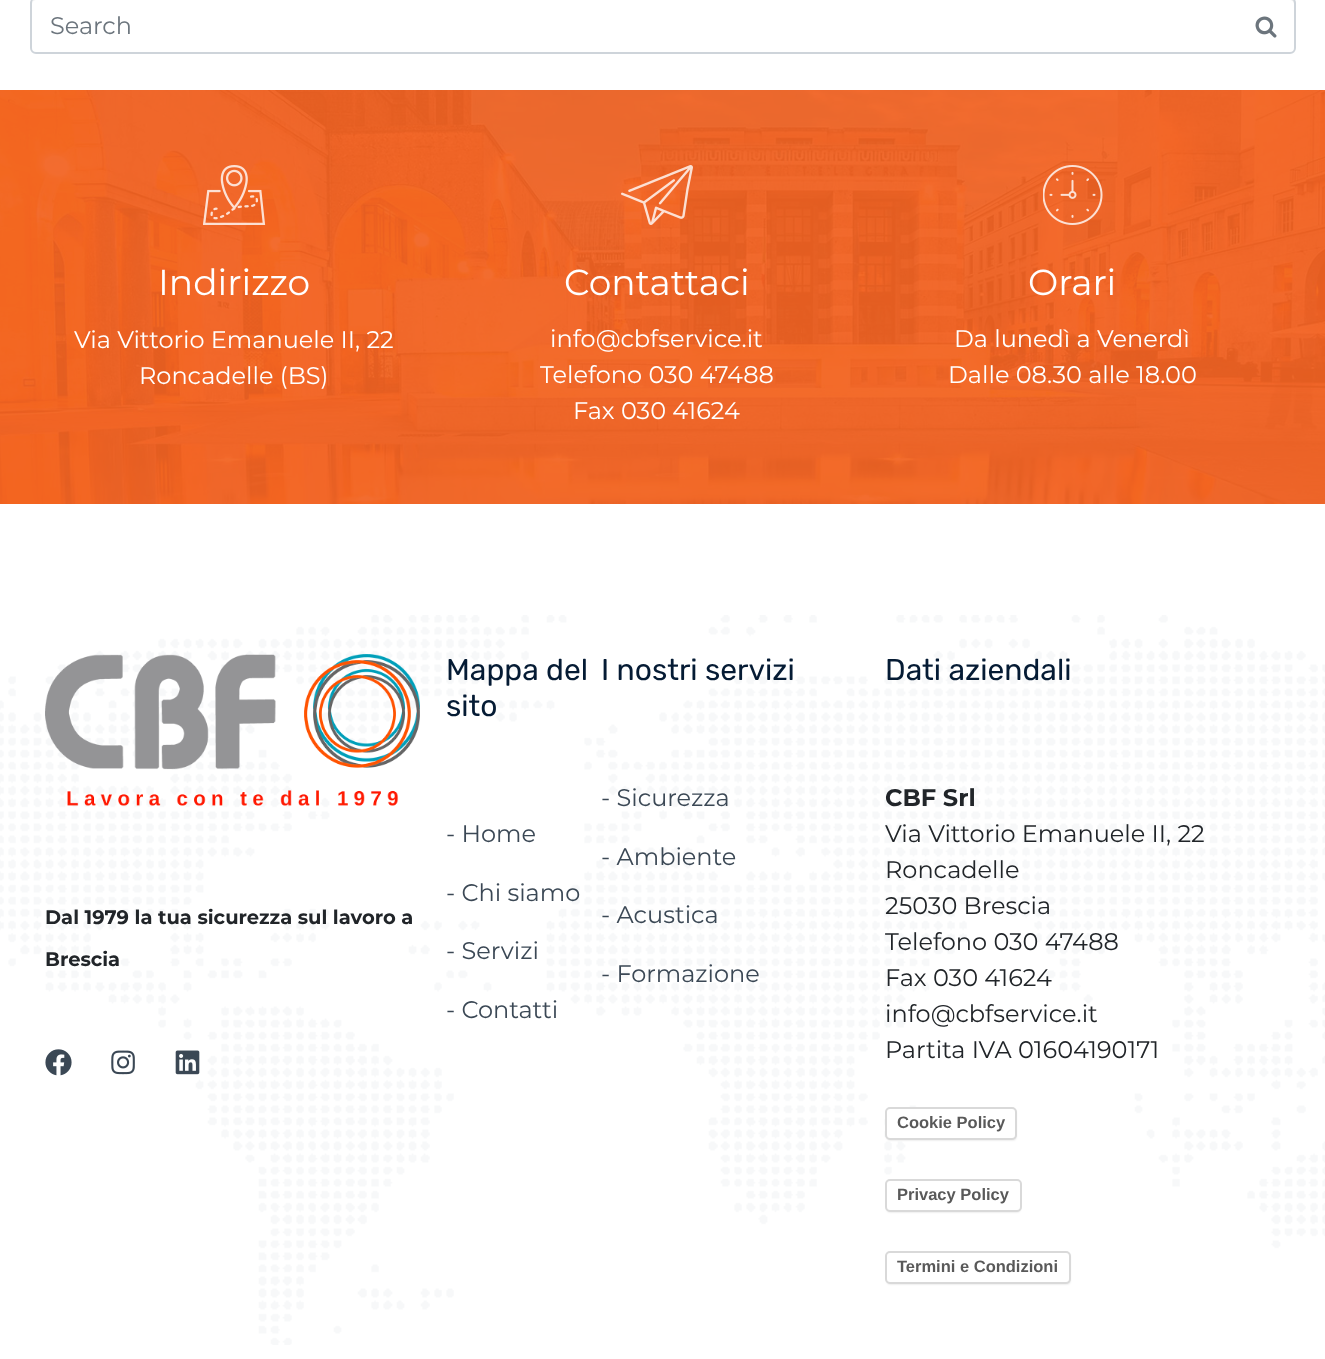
(async () => {
const canvas = document.querySelector("canvas")
canvas.width = 1325
canvas.height = 1359
const c = canvas.getContext("2d")
c.miterLimit = 4
c.fontKerning = "normal"
function T(s,x,y){c.fillText(s,x,y)}
function R(x,y,w,h){c.fillRect(x,y,w,h)}
async function I(src,x,y,w,h){const img=new Image();img.src=src;await img.decode();c.drawImage(img,x,y,w,h)}
let path
c.fillStyle="#fff"
R(0,0,1325,1359)
c.fillStyle="#ececec"
path = new Path2D("M36 0h1254c2 0 4 2 4 4v47c1-1 1-2 1-3v-44c0-3-2-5-5-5h-1253c-3 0-5 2-5 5c0-2 2-4 4-4z")
c.fill(path)
c.beginPath()
c.roundRect(31,-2,1264,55,5)
c.strokeStyle="#ced4da"
c.lineWidth=2
c.stroke()
c.font="24px Montserrat"
c.fillStyle="#6c757d"
T("Search",50,34)
await I("1.png",1255,16,22,22)
await I("2.png",0,90,1325,414)
await I("3.png",203,165,63,60)
c.font="36px Montserrat"
c.fillStyle="#fff"
T("Indirizzo",158,295)
c.font="24px Montserrat"
T("Via Vittorio Emanuele II, 22",74,348)
T("Roncadelle (BS)",139,384)
await I("4.png",621,165,72,60)
c.font="36px Montserrat"
T("Contattaci",564,295)
c.font="24px Montserrat"
T("info@cbfservice.it",550,347)
T("Telefono 030 47488",540,383)
T("Fax 030 41624",573,419)
await I("5.png",1043,165,60,60)
c.font="36px Montserrat"
T("Orari",1028,295)
c.font="24px Montserrat"
T("Da lunedì a Venerdì",954,347)
T("Dalle 08.30 alle 18.00",948,383)
await I("6.png",0,615,1325,730)
await I("7.png",45,654,375,152)
c.font="bold 19.5px Montserrat"
c.fillStyle="#212529"
T("Dal 1979 la tua sicurezza sul lavoro a",45,924)
T("Brescia",45,966)
await I("8.png",45,1049,27,27)
await I("9.png",111,1050,24,25)
await I("10.png",175,1050,25,25)
c.font="30px Rubik"
c.fillStyle="#051b34"
T("Mappa del",446,680)
T("sito",446,716)
c.font="24px Montserrat"
c.fillStyle="#3b4855"
T("- Home",446,842)
T("- Chi siamo",446,901)
T("- Servizi",446,959)
T("- Contatti",446,1018)
c.font="30px Rubik"
c.fillStyle="#051b34"
T("I nostri servizi",601,680)
c.font="24px Montserrat"
c.fillStyle="#3b4855"
T("- Sicurezza",601,806)
T("- Ambiente",601,865)
T("- Acustica",601,923)
T("- Formazione",601,982)
c.font="30px Rubik"
c.fillStyle="#051b34"
T("Dati aziendali",885,680)
c.font="bold 24px Montserrat"
c.fillStyle="#212529"
T("CBF Srl",885,806)
c.font="24px Montserrat"
T("Via Vittorio Emanuele II, 22",885,842)
T("Roncadelle",885,878)
T("25030 Brescia",885,914)
T("Telefono 030 47488",885,950)
T("Fax 030 41624",885,986)
T("info@cbfservice.it",885,1022)
T("Partita IVA 01604190171",885,1058)
c.fillStyle="#00000026"
c.filter="blur(1px)"
c.beginPath()
c.roundRect(887,1110,129,30,3)
c.fill()
c.filter="none"
c.fillStyle="#fff"
c.beginPath()
c.roundRect(886,1108,130,31,4)
c.fill()
c.strokeStyle="#d9d9d9"
c.stroke()
c.font="bold 16.5px Liberation Sans"
c.fillStyle="#595959"
T("Cookie Policy",897,1128)
c.fillStyle="#00000026"
c.filter="blur(1px)"
c.beginPath()
c.roundRect(887,1182,133,30,3)
c.fill()
c.filter="none"
c.fillStyle="#fff"
c.beginPath()
c.roundRect(886,1180,135,31,4)
c.fill()
c.stroke()
c.fillStyle="#595959"
T("Privacy Policy",897,1200)
c.fillStyle="#00000026"
c.filter="blur(1px)"
c.beginPath()
c.roundRect(887,1254,183,30,3)
c.fill()
c.filter="none"
c.fillStyle="#fff"
c.beginPath()
c.roundRect(886,1252,184,31,4)
c.fill()
c.stroke()
c.fillStyle="#595959"
T("Termini e Condizioni",897,1272)
})()
